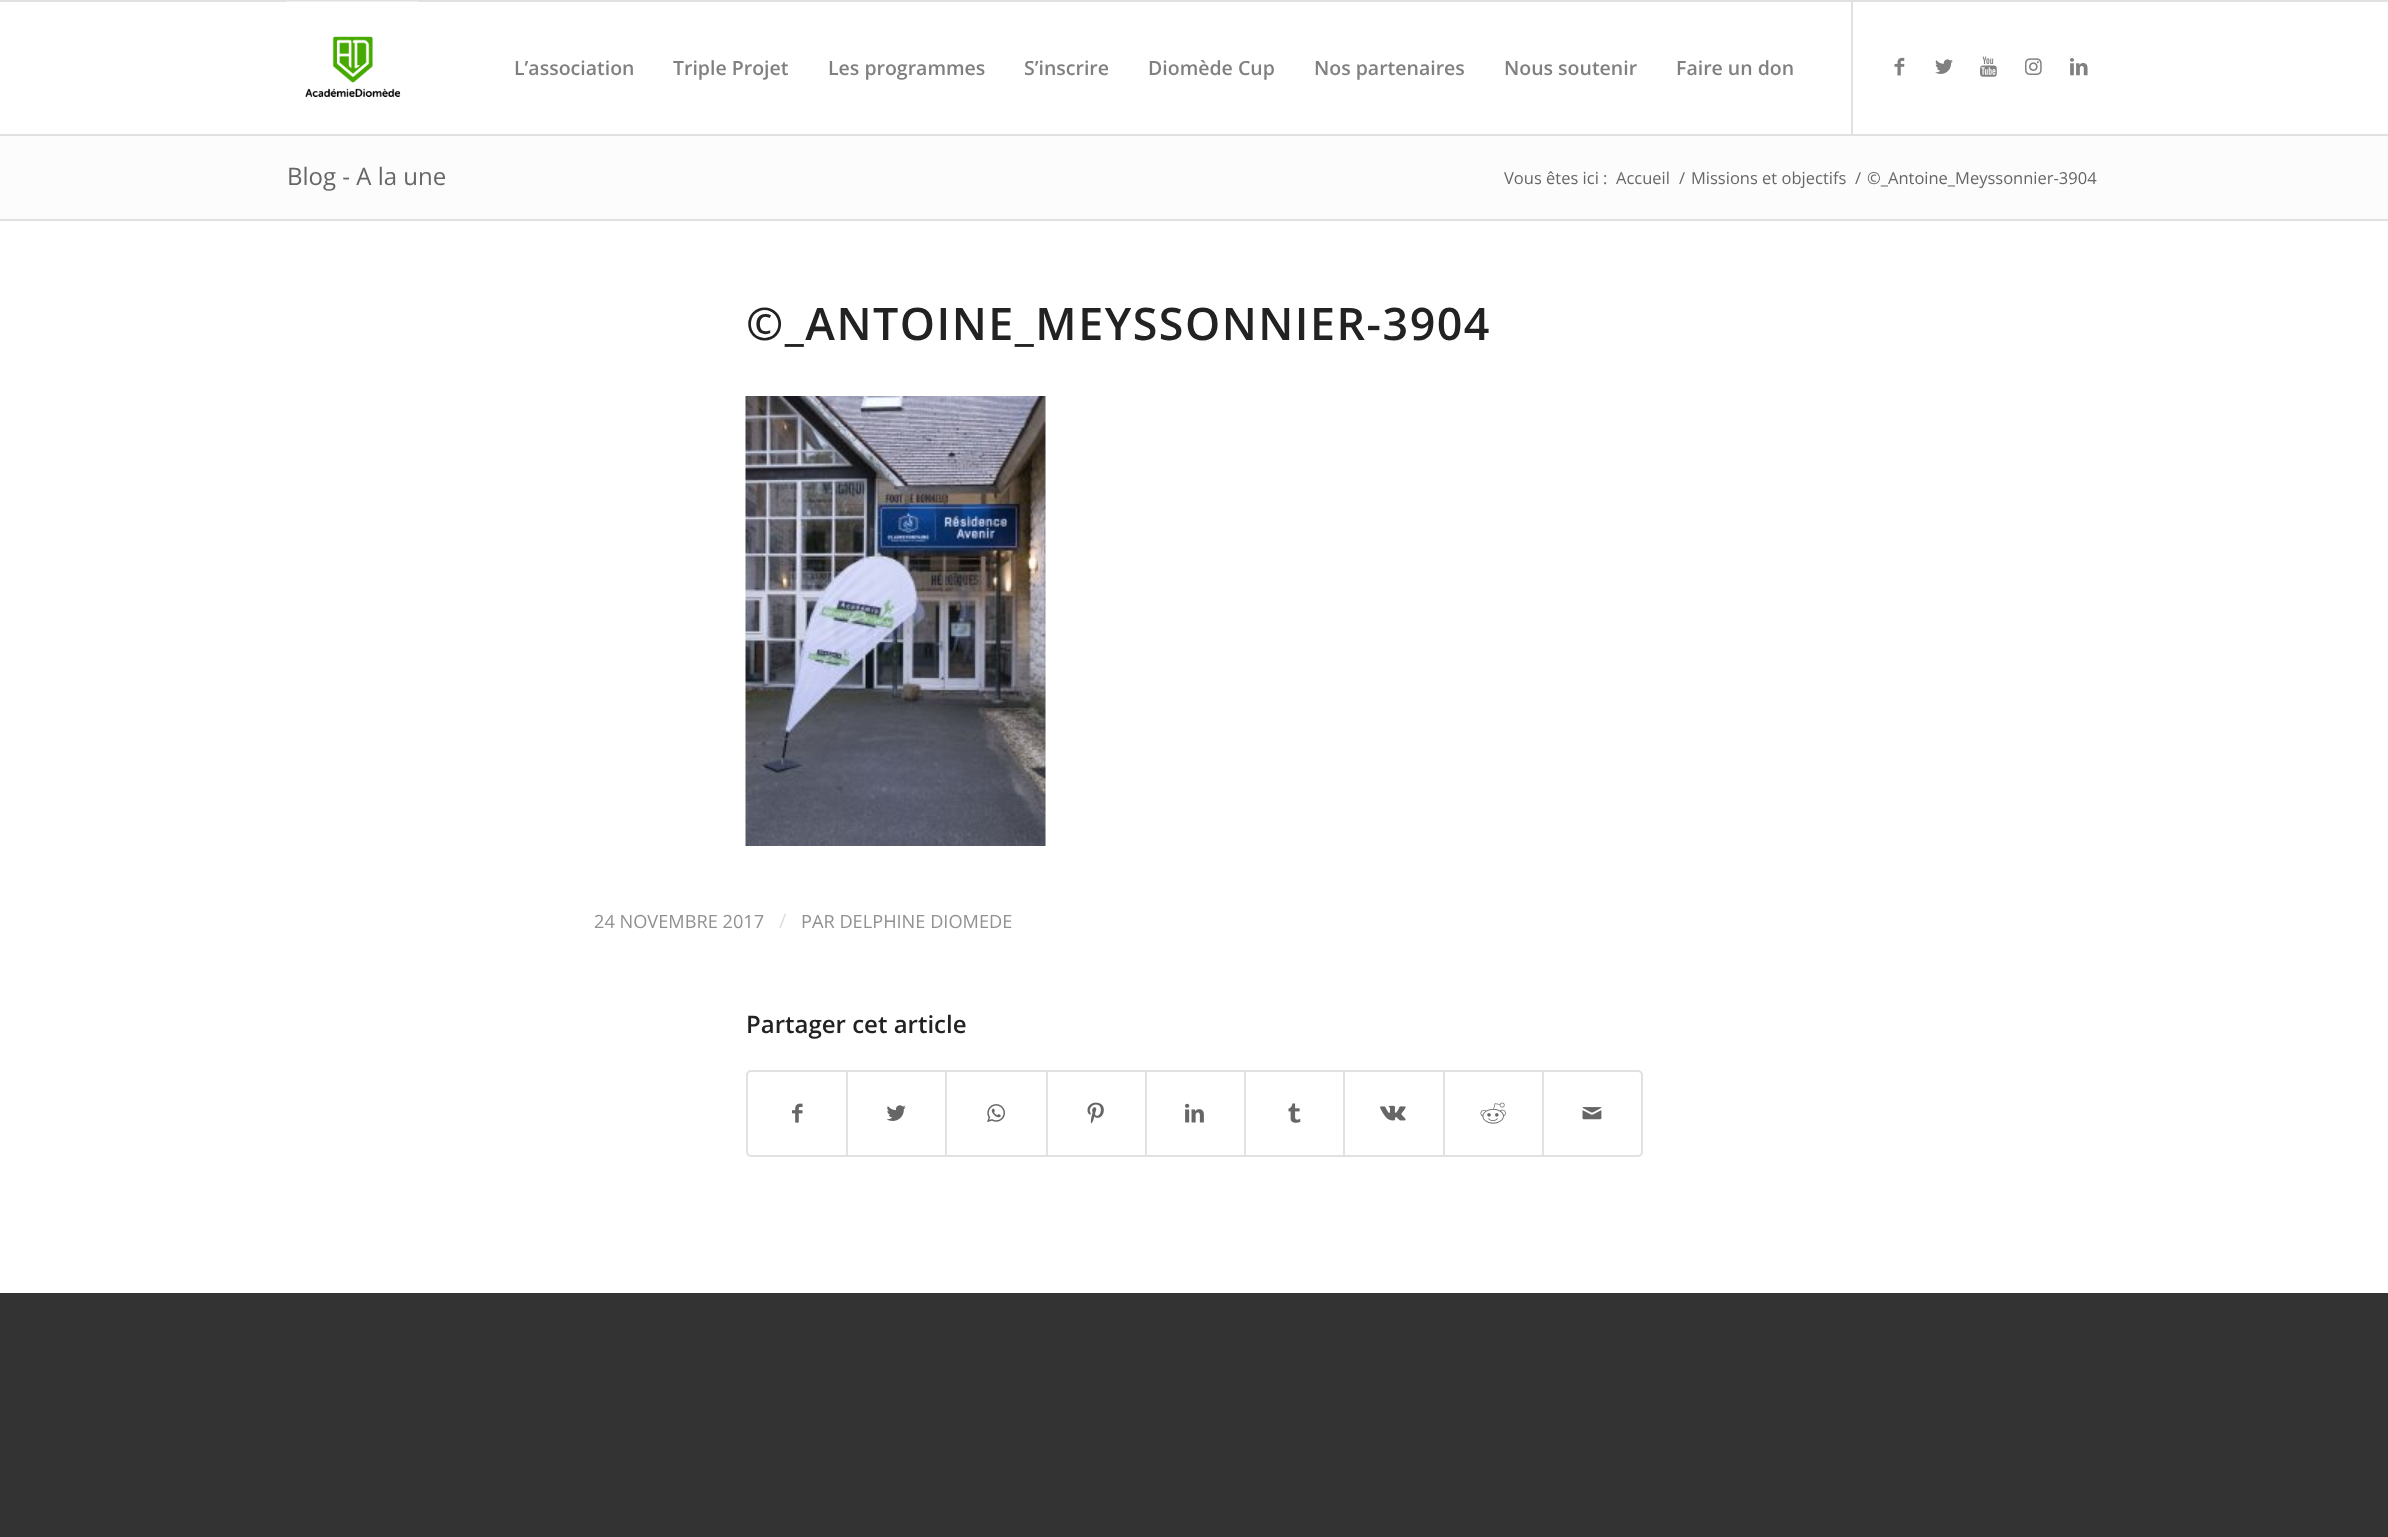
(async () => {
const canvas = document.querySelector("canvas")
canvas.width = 2388
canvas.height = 1537
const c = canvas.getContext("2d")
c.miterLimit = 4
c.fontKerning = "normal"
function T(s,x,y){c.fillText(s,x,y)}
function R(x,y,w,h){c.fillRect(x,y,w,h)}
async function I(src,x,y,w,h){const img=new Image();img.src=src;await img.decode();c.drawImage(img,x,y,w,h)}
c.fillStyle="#333"
R(0,0,2388,1537)
c.fillStyle="#e1e1e1"
R(0,0,2388,2)
R(0,134,2388,2)
c.fillStyle="#fff"
R(0,2,2388,130)
await I("1.png",286,1,133,96)
c.fillStyle="#fefefe"
R(0,132,2388,2)
c.fillStyle="#e1e1e1"
R(1851,2,2,132)
c.font="600 19.5px Open Sans"
c.fillStyle="#808080"
T("L’association",514,75)
T("Triple Projet",673,75)
T("Les programmes",828,75)
T("S’inscrire",1024,75)
T("Diomède Cup",1148,75)
T("Nos partenaires",1314,75)
T("Nous soutenir",1504,75)
T("Faire un don",1676,75)
await I("2.png",1894,57,11,19)
await I("3.png",1935,59,18,15)
await I("4.png",1980,56,17,21)
await I("5.png",2025,58,17,18)
await I("6.png",2070,58,18,18)
c.fillStyle="#fff"
R(0,221,2388,1072)
c.fillStyle="#fcfcfc"
R(0,136,2388,83)
c.font="24px Open Sans"
c.fillStyle="#666"
T("Blog - A la une",287,185)
c.font="16.5px Open Sans"
T("Vous êtes ici :",1504,184)
T("Accueil",1616,184)
T("/",1679,184)
T("Missions et objectifs",1691,184)
T("/",1855,184)
T("©_Antoine_Meyssonnier-3904",1867,184)
c.fillStyle="#e1e1e1"
R(0,219,2388,2)
c.letterSpacing="1.5px"
c.font="600 44.8px Open Sans"
c.fillStyle="#222"
T("©_ANTOINE_MEYSSONNIER-3904",746,340)
await I("7.png",745,396,301,450)
c.letterSpacing="0px"
c.font="18.2px Open Sans"
c.fillStyle="#919191"
T("24 NOVEMBRE 2017",594,928)
c.font="20px Open Sans"
c.fillStyle="#dedede"
T("/",779,928)
c.font="18.2px Open Sans"
c.fillStyle="#919191"
T("PAR DELPHINE DIOMEDE",801,928)
c.font="600 24px Open Sans"
c.fillStyle="#222"
T("Partager cet article",746,1033)
c.beginPath()
c.roundRect(747,1071,895,85,4)
c.strokeStyle="#e1e1e1"
c.lineWidth=2
c.stroke()
await I("8.png",792,1103,11,20)
c.fillStyle="#e1e1e1"
R(846,1071,2,84)
await I("9.png",886,1105,20,16)
R(945,1071,2,84)
await I("10.png",987,1104,18,19)
R(1046,1071,2,84)
await I("11.png",1087,1102,17,22)
R(1145,1071,2,84)
await I("12.png",1185,1103,19,20)
R(1244,1071,2,84)
await I("13.png",1288,1103,13,20)
R(1343,1071,2,84)
await I("14.png",1380,1105,26,16)
R(1443,1071,2,84)
await I("15.png",1480,1102,26,22)
R(1542,1071,2,84)
await I("16.png",1582,1107,20,13)
})()
